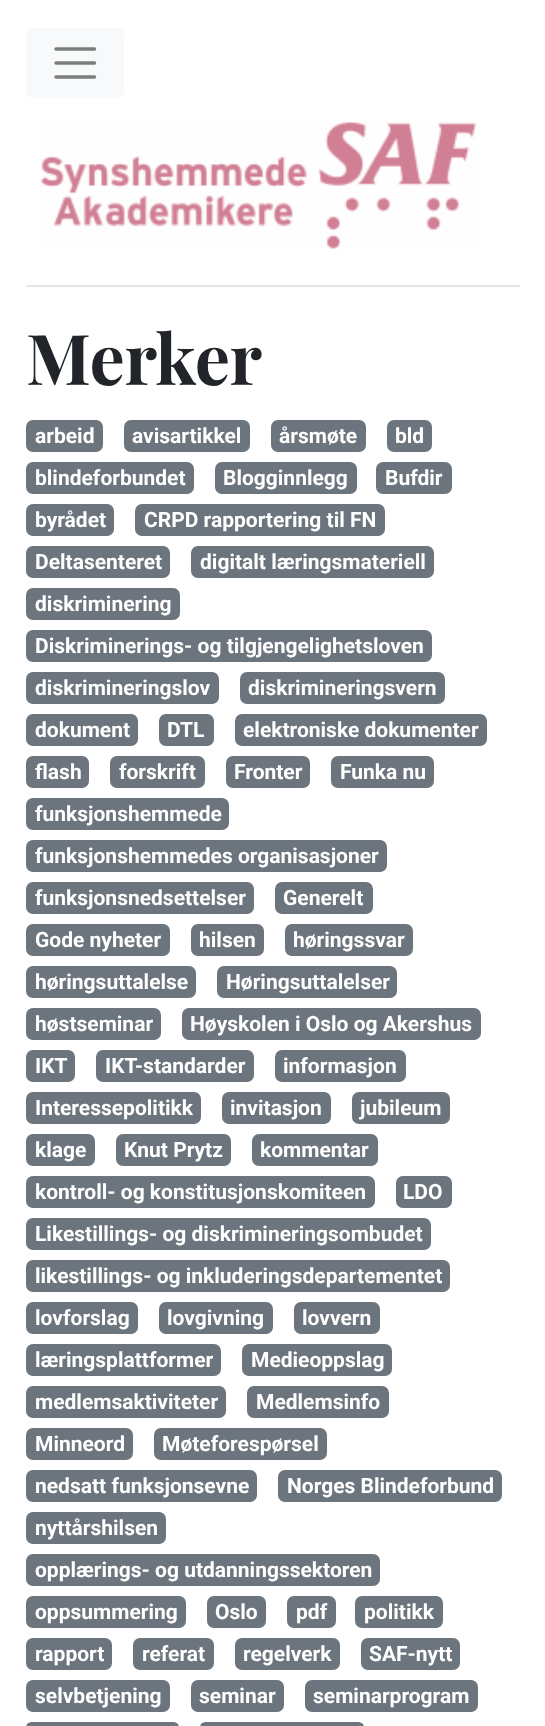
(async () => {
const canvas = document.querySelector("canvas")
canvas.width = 545
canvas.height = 1726
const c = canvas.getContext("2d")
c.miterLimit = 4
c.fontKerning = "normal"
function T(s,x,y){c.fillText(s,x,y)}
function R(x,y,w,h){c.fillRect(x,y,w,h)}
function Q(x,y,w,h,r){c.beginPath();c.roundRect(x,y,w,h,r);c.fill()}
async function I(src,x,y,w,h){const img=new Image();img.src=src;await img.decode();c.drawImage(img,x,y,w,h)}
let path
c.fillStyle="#fff"
R(0,0,545,1726)
c.fillStyle="#e5e5e5"
R(26,285,494,2)
c.fillStyle="#f8f9fa"
Q(26,28,98,70,7)
path = new Path2D("M56 49h38.5m-38.5 14h38.5m-38.5 14h38.5")
c.strokeStyle="#7c7d7d"
c.lineWidth=3.5
c.lineCap="round"
c.stroke(path)
await I("1.png",40,122,437,127)
c.font="bold 70px Playfair Display"
c.fillStyle="#212529"
T("Merker",26,385)
c.fillStyle="#6c757d"
Q(26,420,77,32,7)
c.font="bold 21px Roboto"
c.fillStyle="#fff"
T("arbeid",35,443)
c.fillStyle="#6c757d"
Q(124,420,126,32,7)
c.fillStyle="#fff"
T("avisartikkel",132,443)
c.fillStyle="#6c757d"
Q(271,420,95,32,7)
c.fillStyle="#fff"
T("årsmøte",279,443)
c.fillStyle="#6c757d"
Q(387,420,45,32,7)
c.fillStyle="#fff"
T("bld",395,443)
c.fillStyle="#6c757d"
Q(26,462,168,32,7)
c.fillStyle="#fff"
T("blindeforbundet",35,485)
c.fillStyle="#6c757d"
Q(215,462,142,32,7)
c.fillStyle="#fff"
T("Blogginnlegg",223,485)
c.fillStyle="#6c757d"
Q(376,462,76,32,7)
c.fillStyle="#fff"
T("Bufdir",385,485)
c.fillStyle="#6c757d"
Q(26,504,88,32,7)
c.fillStyle="#fff"
T("byrådet",35,527)
c.fillStyle="#6c757d"
Q(135,504,250,32,7)
c.fillStyle="#fff"
T("CRPD rapportering til FN",144,527)
c.fillStyle="#6c757d"
Q(26,546,144,32,7)
c.fillStyle="#fff"
T("Deltasenteret",35,569)
c.fillStyle="#6c757d"
Q(191,546,243,32,7)
c.fillStyle="#fff"
T("digitalt læringsmateriell",200,569)
c.fillStyle="#6c757d"
Q(26,588,154,32,7)
c.fillStyle="#fff"
T("diskriminering",35,611)
c.fillStyle="#6c757d"
Q(26,630,406,32,7)
c.fillStyle="#fff"
T("Diskriminerings- og tilgjengelighetsloven",35,653)
c.fillStyle="#6c757d"
Q(26,672,193,32,7)
c.fillStyle="#fff"
T("diskrimineringslov",35,695)
c.fillStyle="#6c757d"
Q(240,672,205,32,7)
c.fillStyle="#fff"
T("diskrimineringsvern",248,695)
c.fillStyle="#6c757d"
Q(26,714,112,32,7)
c.fillStyle="#fff"
T("dokument",35,737)
c.fillStyle="#6c757d"
Q(159,714,55,32,7)
c.fillStyle="#fff"
T("DTL",167,737)
c.fillStyle="#6c757d"
Q(235,714,252,32,7)
c.fillStyle="#fff"
T("elektroniske dokumenter",243,737)
c.fillStyle="#6c757d"
Q(26,756,63,32,7)
c.fillStyle="#fff"
T("flash",35,779)
c.fillStyle="#6c757d"
Q(110,756,95,32,7)
c.fillStyle="#fff"
T("forskrift",119,779)
c.fillStyle="#6c757d"
Q(226,756,84,32,7)
c.fillStyle="#fff"
T("Fronter",234,779)
c.fillStyle="#6c757d"
Q(331,756,103,32,7)
c.fillStyle="#fff"
T("Funka nu",340,779)
c.fillStyle="#6c757d"
Q(26,798,203,32,7)
c.fillStyle="#fff"
T("funksjonshemmede",35,821)
c.fillStyle="#6c757d"
Q(26,840,361,32,7)
c.fillStyle="#fff"
T("funksjonshemmedes organisasjoner",35,863)
c.fillStyle="#6c757d"
Q(26,882,228,32,7)
c.fillStyle="#fff"
T("funksjonsnedsettelser",35,905)
c.fillStyle="#6c757d"
Q(275,882,98,32,7)
c.fillStyle="#fff"
T("Generelt",283,905)
c.fillStyle="#6c757d"
Q(26,924,144,32,7)
c.fillStyle="#fff"
T("Gode nyheter",35,947)
c.fillStyle="#6c757d"
Q(191,924,73,32,7)
c.fillStyle="#fff"
T("hilsen",199,947)
c.fillStyle="#6c757d"
Q(285,924,128,32,7)
c.fillStyle="#fff"
T("høringssvar",293,947)
c.fillStyle="#6c757d"
Q(26,966,170,32,7)
c.fillStyle="#fff"
T("høringsuttalelse",35,989)
c.fillStyle="#6c757d"
Q(217,966,180,32,7)
c.fillStyle="#fff"
T("Høringsuttalelser",226,989)
c.fillStyle="#6c757d"
Q(26,1008,135,32,7)
c.fillStyle="#fff"
T("høstseminar",35,1031)
c.fillStyle="#6c757d"
Q(182,1008,299,32,7)
c.fillStyle="#fff"
T("Høyskolen i Oslo og Akershus",190,1031)
c.fillStyle="#6c757d"
Q(26,1050,49,32,7)
c.fillStyle="#fff"
T("IKT",35,1073)
c.fillStyle="#6c757d"
Q(96,1050,158,32,7)
c.fillStyle="#fff"
T("IKT-standarder",105,1073)
c.fillStyle="#6c757d"
Q(275,1050,131,32,7)
c.fillStyle="#fff"
T("informasjon",283,1073)
c.fillStyle="#6c757d"
Q(26,1092,175,32,7)
c.fillStyle="#fff"
T("Interessepolitikk",35,1115)
c.fillStyle="#6c757d"
Q(222,1092,109,32,7)
c.fillStyle="#fff"
T("invitasjon",230,1115)
c.fillStyle="#6c757d"
Q(352,1092,98,32,7)
c.fillStyle="#fff"
T("jubileum",360,1115)
c.fillStyle="#6c757d"
Q(26,1134,69,32,7)
c.fillStyle="#fff"
T("klage",35,1157)
c.fillStyle="#6c757d"
Q(116,1134,115,32,7)
c.fillStyle="#fff"
T("Knut Prytz",124,1157)
c.fillStyle="#6c757d"
Q(252,1134,126,32,7)
c.fillStyle="#fff"
T("kommentar",260,1157)
c.fillStyle="#6c757d"
Q(26,1176,349,32,7)
c.fillStyle="#fff"
T("kontroll- og konstitusjonskomiteen",35,1199)
c.fillStyle="#6c757d"
Q(396,1176,56,32,7)
c.fillStyle="#fff"
T("LDO",403,1199)
c.fillStyle="#6c757d"
Q(26,1218,405,32,7)
c.fillStyle="#fff"
T("Likestillings- og diskrimineringsombudet",35,1241)
c.fillStyle="#6c757d"
Q(26,1260,424,32,7)
c.fillStyle="#fff"
T("likestillings- og inkluderingsdepartementet",35,1283)
c.fillStyle="#6c757d"
Q(26,1302,112,32,7)
c.fillStyle="#fff"
T("lovforslag",35,1325)
c.fillStyle="#6c757d"
Q(159,1302,114,32,7)
c.fillStyle="#fff"
T("lovgivning",167,1325)
c.fillStyle="#6c757d"
Q(294,1302,86,32,7)
c.fillStyle="#fff"
T("lovvern",302,1325)
c.fillStyle="#6c757d"
Q(26,1344,195,32,7)
c.fillStyle="#fff"
T("læringsplattformer",35,1367)
c.fillStyle="#6c757d"
Q(242,1344,150,32,7)
c.fillStyle="#fff"
T("Medieoppslag",251,1367)
c.fillStyle="#6c757d"
Q(26,1386,200,32,7)
c.fillStyle="#fff"
T("medlemsaktiviteter",35,1409)
c.fillStyle="#6c757d"
Q(247,1386,142,32,7)
c.fillStyle="#fff"
T("Medlemsinfo",256,1409)
c.fillStyle="#6c757d"
Q(26,1428,107,32,7)
c.fillStyle="#fff"
T("Minneord",35,1451)
c.fillStyle="#6c757d"
Q(154,1428,173,32,7)
c.fillStyle="#fff"
T("Møteforespørsel",162,1451)
c.fillStyle="#6c757d"
Q(26,1470,231,32,7)
c.fillStyle="#fff"
T("nedsatt funksjonsevne",35,1493)
c.fillStyle="#6c757d"
Q(278,1470,224,32,7)
c.fillStyle="#fff"
T("Norges Blindeforbund",287,1493)
c.fillStyle="#6c757d"
Q(26,1512,140,32,7)
c.fillStyle="#fff"
T("nyttårshilsen",35,1535)
c.fillStyle="#6c757d"
Q(26,1554,354,32,7)
c.fillStyle="#fff"
T("opplærings- og utdanningssektoren",35,1577)
c.fillStyle="#6c757d"
Q(26,1596,160,32,7)
c.fillStyle="#fff"
T("oppsummering",35,1619)
c.fillStyle="#6c757d"
Q(207,1596,59,32,7)
c.fillStyle="#fff"
T("Oslo",215,1619)
c.fillStyle="#6c757d"
Q(287,1596,49,32,7)
c.fillStyle="#fff"
T("pdf",296,1619)
c.fillStyle="#6c757d"
Q(355,1596,88,32,7)
c.fillStyle="#fff"
T("politikk",364,1619)
c.fillStyle="#6c757d"
Q(26,1638,86,32,7)
c.fillStyle="#fff"
T("rapport",35,1661)
c.fillStyle="#6c757d"
Q(133,1638,81,32,7)
c.fillStyle="#fff"
T("referat",142,1661)
c.fillStyle="#6c757d"
Q(235,1638,105,32,7)
c.fillStyle="#fff"
T("regelverk",243,1661)
c.fillStyle="#6c757d"
Q(361,1638,99,32,7)
c.fillStyle="#fff"
T("SAF-nytt",369,1661)
c.fillStyle="#6c757d"
Q(26,1680,144,32,7)
c.fillStyle="#fff"
T("selvbetjening",35,1703)
c.fillStyle="#6c757d"
Q(191,1680,93,32,7)
c.fillStyle="#fff"
T("seminar",199,1703)
c.fillStyle="#6c757d"
Q(305,1680,173,32,7)
c.fillStyle="#fff"
T("seminarprogram",313,1703)
c.fillStyle="#6c757d"
Q(26,1722,153,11,7)
Q(200,1722,164,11,7)
})()
